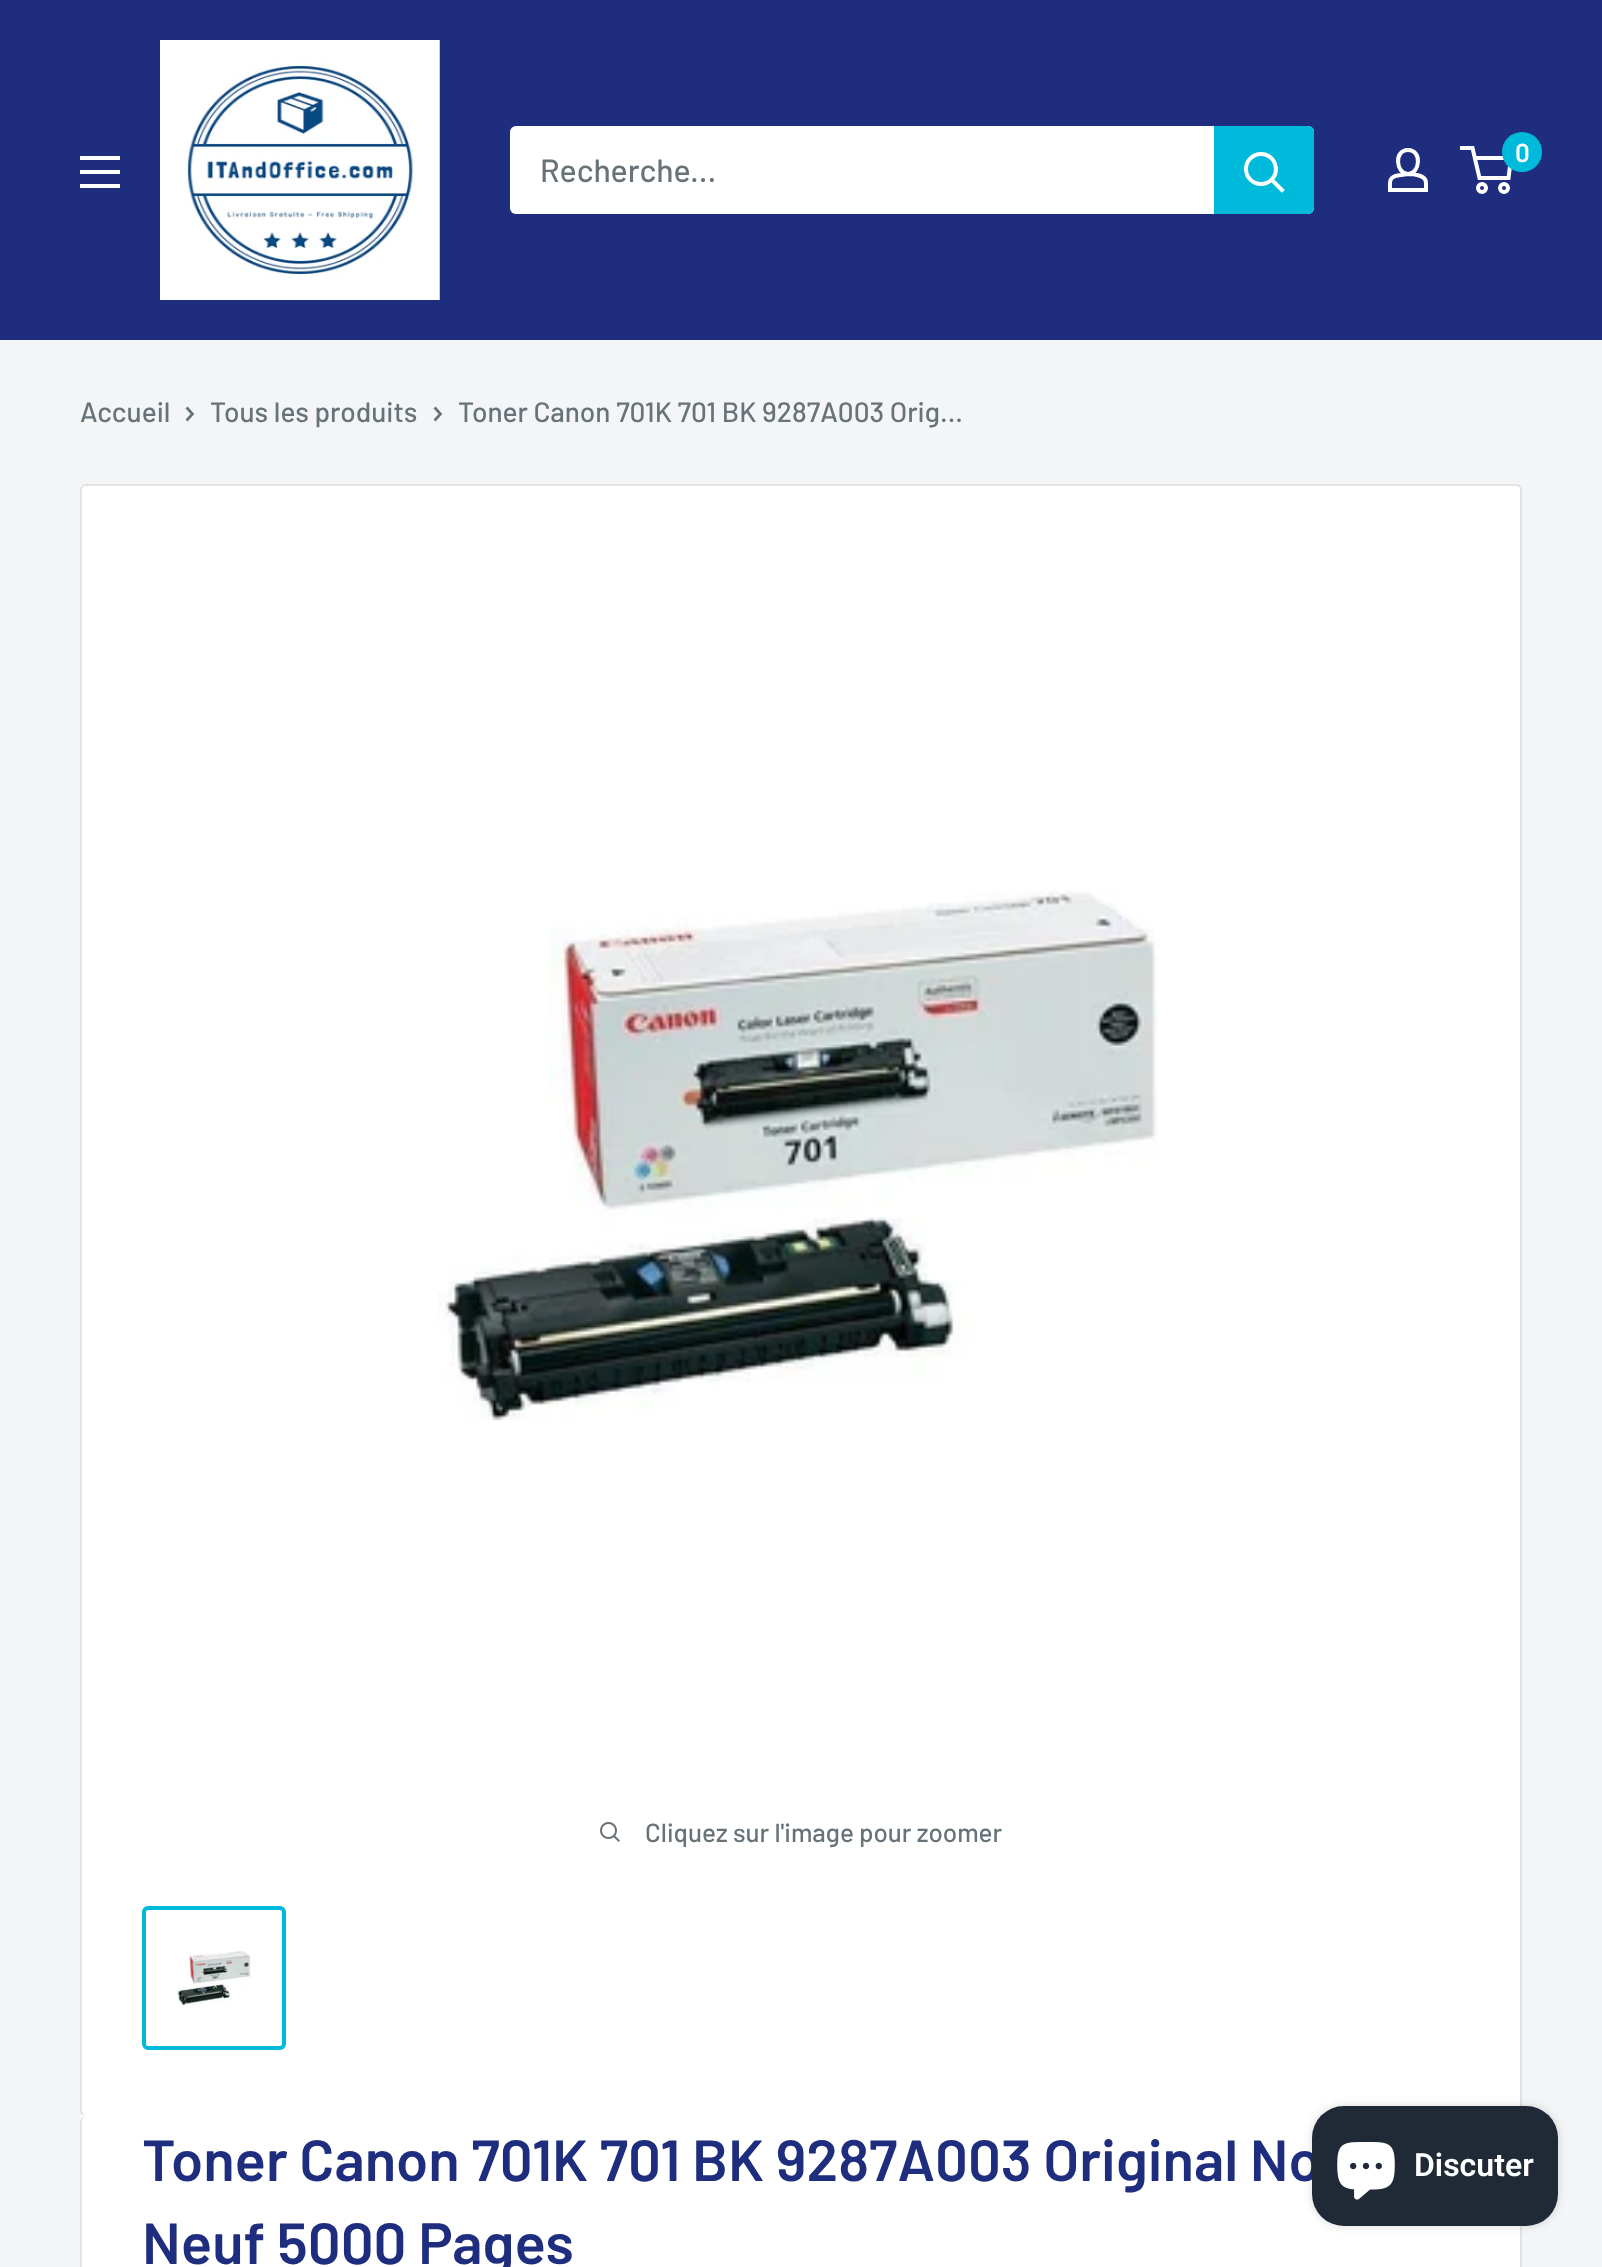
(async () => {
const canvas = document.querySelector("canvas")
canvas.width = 1602
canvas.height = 2267
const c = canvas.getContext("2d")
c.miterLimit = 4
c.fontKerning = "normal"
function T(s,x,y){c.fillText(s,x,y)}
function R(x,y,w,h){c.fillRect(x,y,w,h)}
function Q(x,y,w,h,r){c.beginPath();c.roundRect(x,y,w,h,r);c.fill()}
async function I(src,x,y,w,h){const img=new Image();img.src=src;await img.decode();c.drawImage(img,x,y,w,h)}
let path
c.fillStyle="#f3f5f6"
R(0,0,1602,2267)
c.fillStyle="#1e2d7d"
R(0,0,1602,340)
await I("1.png",160,40,280,260)
path = new Path2D("M1408 174c4 0 7.5 .5 11 1.5c8.5 2.5 7 7 7 14.5h-36c0-8-1.5-12.5 7.5-14.5zm0 0c-12 0-14.5-24 0-24c14.5 0 12 24 0 24z")
c.strokeStyle="#fff"
c.lineWidth=4
c.stroke(path)
c.beginPath()
c.arc(1482,188,4,0,7)
c.stroke()
c.beginPath()
c.arc(1504,188,4,0,7)
c.stroke()
path = new Path2D("M1474.5 158h36.5l-2.5 20h-29l-7-30h-12.5")
c.stroke(path)
c.fillStyle="#00badb"
c.beginPath()
c.arc(1522,152,20,0,7)
c.fill()
c.font="600 26px Barlow"
c.fillStyle="#fff"
T("0",1515,162)
path = new Path2D("M80 184h40v4h-40zm0-28h40v4h-40zm0 14h40v4h-40z")
c.fill(path,"evenodd")
Q(510,126,804,88,6)
c.font="500 32px Barlow"
c.fillStyle="#677279"
T("Recherche...",540,182)
c.fillStyle="#00badb"
c.beginPath()
c.roundRect(1214,126,100,88,[0,6,6,0])
c.fill()
path = new Path2D("M1282 190l-10-10")
c.lineCap="square"
c.stroke(path)
c.beginPath()
c.arc(1261,169,15,0,7)
c.stroke()
c.font="500 28px Barlow"
c.fillStyle="#677279"
T("Accueil",80,422)
path = new Path2D("M187.5 408.5l5 5.5l-5 5.5")
c.strokeStyle="#677279"
c.lineWidth=2.7
c.stroke(path)
T("Tous les produits",210,422)
path = new Path2D("M435.5 408.5l5 5.5l-5 5.5")
c.stroke(path)
T("Toner Canon 701K 701 BK 9287A003 Orig...",458,422)
c.fillStyle="#fff"
c.beginPath()
c.roundRect(81,485,1440,1630,5)
c.fill()
c.strokeStyle="#e1e3e4"
c.lineWidth=2
c.stroke()
await I("2.png",437,890,721,531)
await I("3.png",600,1822,20,20)
c.font="500 26px Barlow"
c.fillStyle="#677279"
T("Cliquez sur l'image pour zoomer",645,1842)
c.beginPath()
c.roundRect(144,1908,140,140,4)
c.strokeStyle="#00badb"
c.lineWidth=4
c.stroke()
await I("4.png",177,1951,74,55)
c.fillStyle="#fff"
path = new Path2D("M86 2114c-5 0-6 4-6 8c0-3 3-6 6-6h1430c3 0 6 3 6 6c0-4-1-8-6-8z")
c.fill(path)
Q(80,2116,1442,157,6)
c.fillStyle="#e1e3e4"
path = new Path2D("M86 2116h1430c3 0 6 3 6 6v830c0 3-3 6-6 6h-1430c-3 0-6-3-6-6v-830c0-3 3-6 6-6zm0 0h1430c2 0 4 3 4 6v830c0 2-2 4-4 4h-1430c-2 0-4-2-4-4v-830c0-3 2-6 4-6z")
c.fill(path,"evenodd")
c.font="600 58px Barlow"
c.fillStyle="#1e2d7d"
T("Toner Canon 701K 701 BK 9287A003 Original No",142,2181)
T("Neuf 5000 Pages",142,2264)
c.fillStyle="#00000026"
c.filter="blur(5px)"
c.beginPath()
c.roundRect(1312,2106,246,120,32)
c.fill()
c.filter="none"
c.fillStyle="#202a36"
Q(1312,2106,246,120,32)
await I("5.png",1337,2142,58,58)
c.font="600 32px Roboto"
c.fillStyle="#fff"
T("Discuter",1414,2176)
})()
